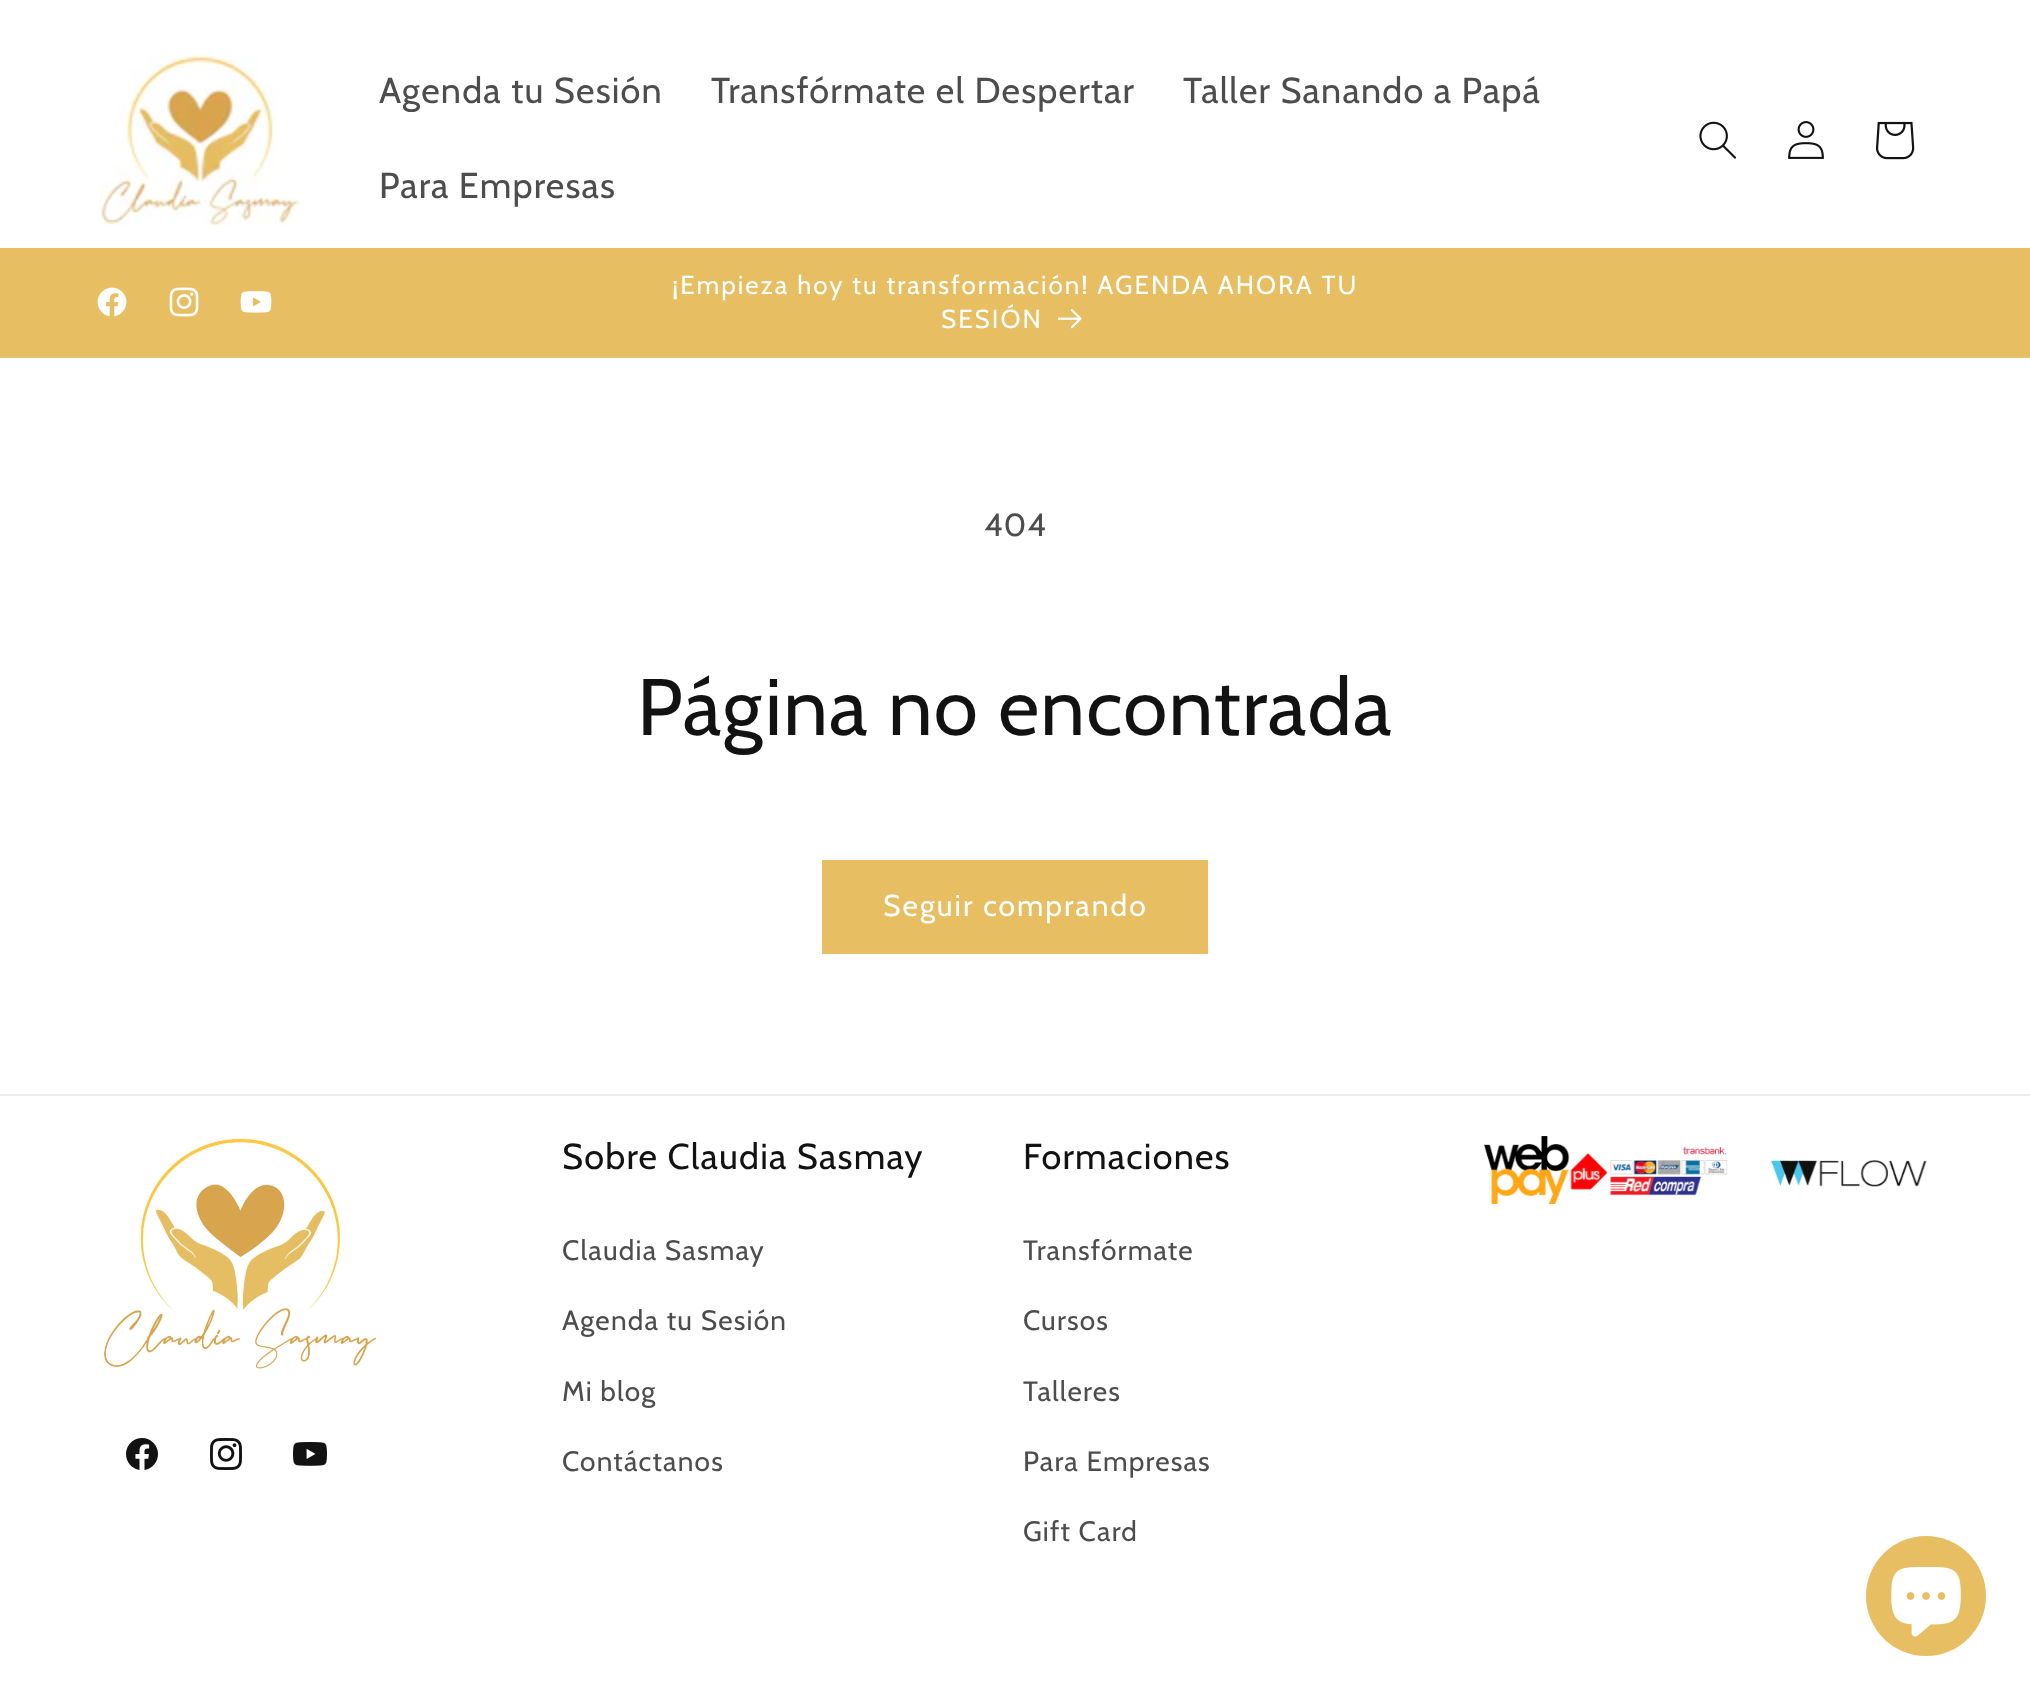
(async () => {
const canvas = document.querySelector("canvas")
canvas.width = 2030
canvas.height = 1697
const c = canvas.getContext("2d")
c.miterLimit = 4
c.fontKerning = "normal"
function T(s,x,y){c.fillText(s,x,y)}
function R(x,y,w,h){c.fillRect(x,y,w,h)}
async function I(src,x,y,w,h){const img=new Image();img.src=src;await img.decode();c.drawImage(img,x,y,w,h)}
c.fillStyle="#fff"
R(0,0,2030,1697)
await I("1.png",100,55,200,171)
c.letterSpacing="1.2px"
c.font="36px Cabin"
c.fillStyle="#4d4d4d"
T("Agenda tu Sesión",379,103)
T("Transfórmate el Despertar",711,103)
T("Taller Sanando a Papá",1183,103)
T("Para Empresas",379,198)
await I("2.png",1699,121,37,38)
await I("3.png",1788,121,36,38)
await I("4.png",1876,121,39,39)
c.fillStyle="#e7be62"
R(0,248,2030,108)
c.fillStyle="#e9c36f"
R(0,356,2030,2)
await I("5.png",97,287,30,30)
await I("6.png",169,287,30,30)
await I("7.png",240,291,32,22)
c.letterSpacing="2px"
c.font="26px Cabin"
c.fillStyle="#fff"
T("¡Empieza hoy tu transformación! AGENDA AHORA TU",672,294)
T("SESIÓN",941,328)
await I("8.png",1058,309,24,20)
c.letterSpacing="1.2px"
c.font="32px Cabin"
c.fillStyle="#4d4d4d"
T("404",984,536)
c.font="80px Cabin"
c.fillStyle="#121212"
T("Página no encontrada",637,735)
c.fillStyle="#e7be62"
R(822,860,386,94)
c.letterSpacing="2px"
c.font="30px Cabin"
c.fillStyle="#fff"
T("Seguir comprando",883,916)
c.fillStyle="#ececec"
R(0,1094,2030,2)
await I("9.png",102,1138,274,232)
await I("10.png",126,1438,32,32)
await I("11.png",210,1438,32,32)
await I("12.png",293,1442,34,24)
c.letterSpacing="1.2px"
c.font="36px Cabin"
c.fillStyle="#121212"
T("Sobre Claudia Sasmay",562,1169)
c.font="28px Cabin"
c.fillStyle="#4d4d4d"
T("Claudia Sasmay",562,1260)
T("Agenda tu Sesión",562,1330)
T("Mi blog",562,1401)
T("Contáctanos",562,1471)
c.font="36px Cabin"
c.fillStyle="#121212"
T("Formaciones",1023,1169)
c.font="28px Cabin"
c.fillStyle="#4d4d4d"
T("Transfórmate",1023,1260)
T("Cursos",1023,1330)
T("Talleres",1023,1401)
T("Para Empresas",1023,1471)
T("Gift Card",1023,1541)
await I("13.png",1484,1136,443,68)
c.fillStyle="#e7be62"
c.beginPath()
c.arc(1926,1596,60,0,7)
c.fill()
await I("14.png",1891,1567,70,70)
})()
